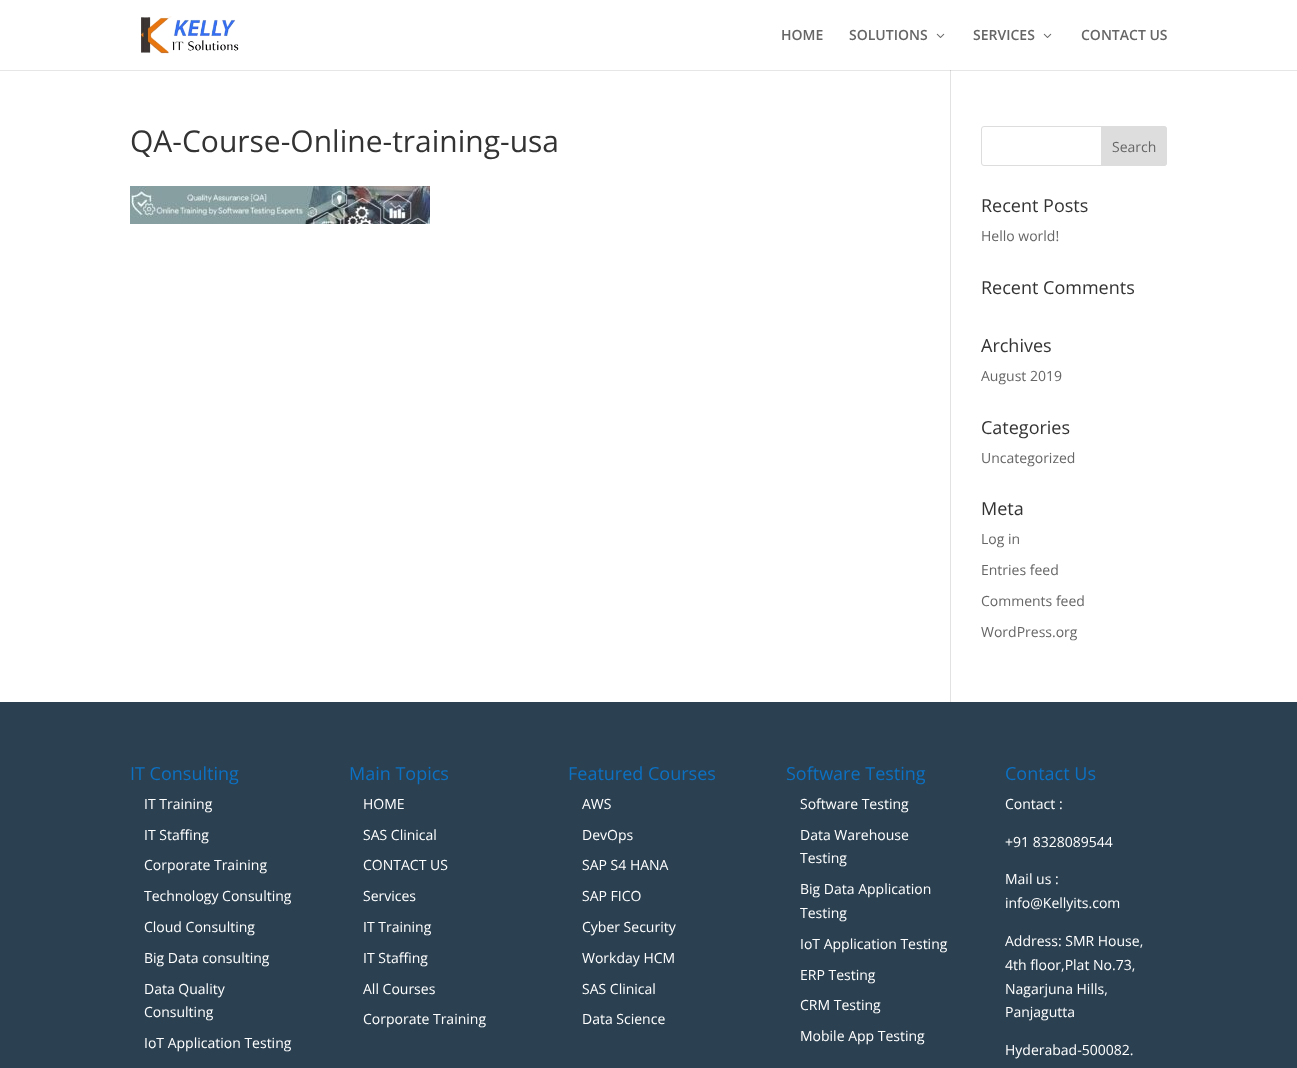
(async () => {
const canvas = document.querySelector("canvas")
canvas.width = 1297
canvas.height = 1068
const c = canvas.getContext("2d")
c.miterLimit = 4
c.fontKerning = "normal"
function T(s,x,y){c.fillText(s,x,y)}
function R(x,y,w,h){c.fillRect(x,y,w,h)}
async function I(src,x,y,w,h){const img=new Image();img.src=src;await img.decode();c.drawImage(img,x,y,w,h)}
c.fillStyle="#fff"
R(0,0,1297,1068)
c.fillStyle="#e6e6e6"
R(0,70,1297,1)
c.fillStyle="#e2e2e2"
R(950,68,1,634)
c.fillStyle="#fff"
R(950,68,1,2)
await I("1.png",141,16,98,38)
c.font="600 14px Open Sans"
c.fillStyle="#666"
T("HOME",781,40)
T("SOLUTIONS",849,40)
await I("2.png",936,33,9,5)
T("SERVICES",973,40)
await I("2.png",1043,33,9,5)
T("CONTACT US",1081,40)
c.fillStyle="#cbcbcb"
R(950,70,1,1)
c.font="30px Open Sans"
c.fillStyle="#333"
T("QA-Course-Online-training-usa",130,152)
await I("3.png",130,186,300,38)
c.beginPath()
c.roundRect(981.5,126.5,185,39,2.5)
c.strokeStyle="#ddd"
c.stroke()
c.fillStyle="#ddd"
c.beginPath()
c.roundRect(1101.5,126.5,65,39,[0,2.5,2.5,0])
c.fill()
c.stroke()
c.font="14px Open Sans"
c.fillStyle="#666"
T("Search",1112,152)
c.font="18px Open Sans"
c.fillStyle="#333"
T("Recent Posts",981,212)
c.font="14px Open Sans"
c.fillStyle="#666"
T("Hello world!",981,241)
c.font="18px Open Sans"
c.fillStyle="#333"
T("Recent Comments",981,294)
T("Archives",981,352)
c.font="14px Open Sans"
c.fillStyle="#666"
T("August 2019",981,381)
c.font="18px Open Sans"
c.fillStyle="#333"
T("Categories",981,434)
c.font="14px Open Sans"
c.fillStyle="#666"
T("Uncategorized",981,463)
c.font="18px Open Sans"
c.fillStyle="#333"
T("Meta",981,515)
c.font="14px Open Sans"
c.fillStyle="#666"
T("Log in",981,544)
T("Entries feed",981,575)
T("Comments feed",981,606)
T("WordPress.org",981,637)
c.fillStyle="#2b4051"
R(0,702,1297,366)
c.font="18px Open Sans"
c.fillStyle="#0c71c3"
T("IT Consulting",130,780)
c.font="14px Open Sans"
c.fillStyle="#fff"
T("IT Training",144,809)
T("IT Staffing",144,840)
T("Corporate Training",144,870)
T("Technology Consulting",144,901)
T("Cloud Consulting",144,932)
T("Big Data consulting",144,963)
T("Data Quality",144,994)
T("Consulting",144,1017)
T("IoT Application Testing",144,1048)
c.font="18px Open Sans"
c.fillStyle="#0c71c3"
T("Main Topics",349,780)
c.font="14px Open Sans"
c.fillStyle="#fff"
T("HOME",363,809)
T("SAS Clinical",363,840)
T("CONTACT US",363,870)
T("Services",363,901)
T("IT Training",363,932)
T("IT Staffing",363,963)
T("All Courses",363,994)
T("Corporate Training",363,1024)
c.font="18px Open Sans"
c.fillStyle="#0c71c3"
T("Featured Courses",568,780)
c.font="14px Open Sans"
c.fillStyle="#fff"
T("AWS",582,809)
T("DevOps",582,840)
T("SAP S4 HANA",582,870)
T("SAP FICO",582,901)
T("Cyber Security",582,932)
T("Workday HCM",582,963)
T("SAS Clinical",582,994)
T("Data Science",582,1024)
c.font="18px Open Sans"
c.fillStyle="#0c71c3"
T("Software Testing",786,780)
c.font="14px Open Sans"
c.fillStyle="#fff"
T("Software Testing",800,809)
T("Data Warehouse",800,840)
T("Testing",800,863)
T("Big Data Application",800,894)
T("Testing",800,918)
T("IoT Application Testing",800,949)
T("ERP Testing",800,980)
T("CRM Testing",800,1010)
T("Mobile App Testing",800,1041)
c.font="18px Open Sans"
c.fillStyle="#0c71c3"
T("Contact Us",1005,780)
c.font="14px Open Sans"
c.fillStyle="#fff"
T("Contact :",1005,809)
T("+91 8328089544",1005,847)
T("Mail us :",1005,884)
T("info@Kellyits.com",1005,908)
T("Address: SMR House,",1005,946)
T("4th floor,Plat No.73,",1005,970)
T("Nagarjuna Hills,",1005,994)
T("Panjagutta",1005,1017)
T("Hyderabad-500082.",1005,1055)
})()
